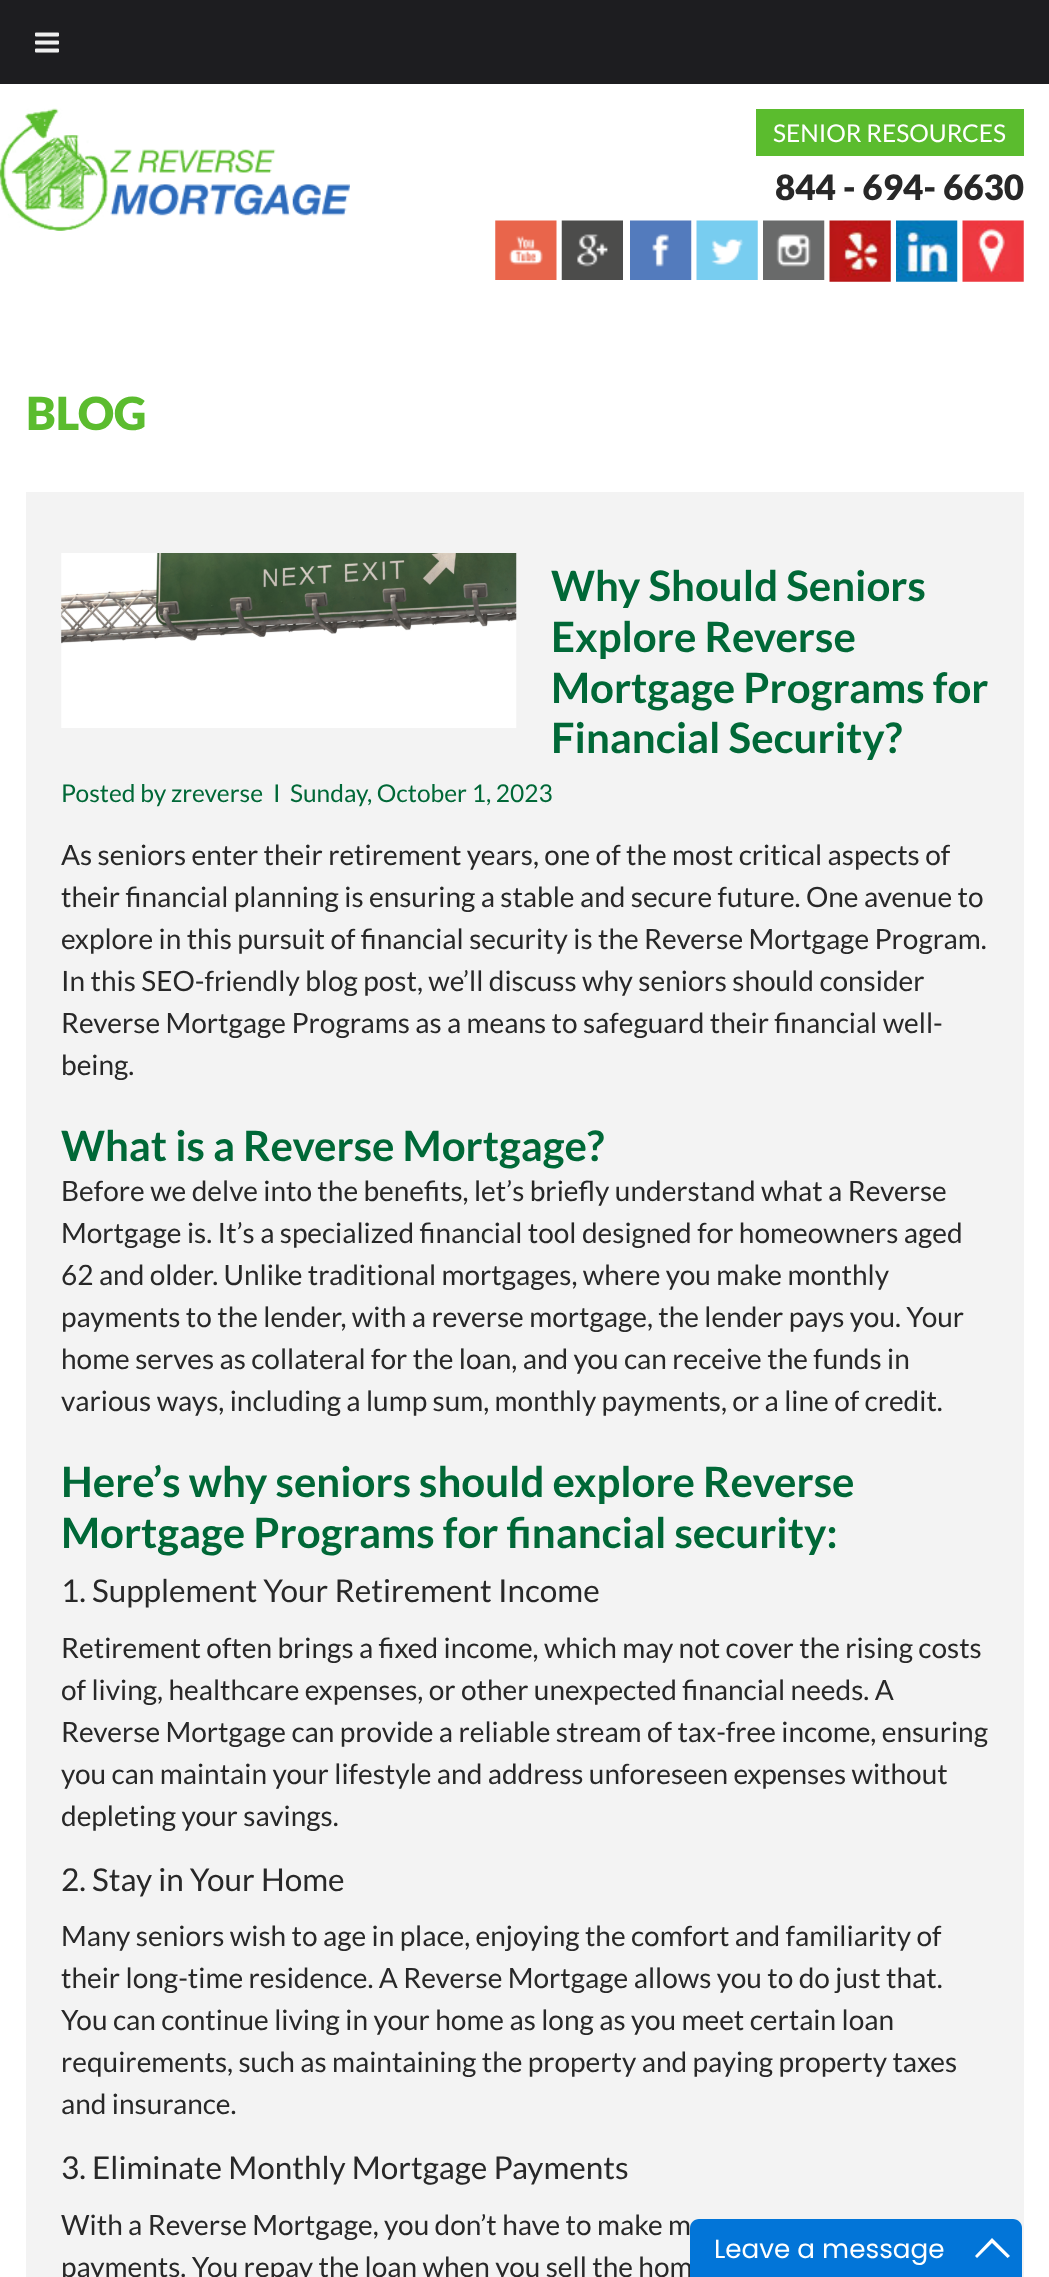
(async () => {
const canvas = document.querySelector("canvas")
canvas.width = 1049
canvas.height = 2277
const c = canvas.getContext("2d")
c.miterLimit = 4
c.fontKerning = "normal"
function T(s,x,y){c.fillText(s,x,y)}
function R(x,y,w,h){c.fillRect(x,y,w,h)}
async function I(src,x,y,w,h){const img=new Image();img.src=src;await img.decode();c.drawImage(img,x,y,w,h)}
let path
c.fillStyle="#fff"
R(0,0,1049,2277)
c.fillStyle="#1d1d20"
R(0,0,1049,84)
await I("1.png",35,32,24,21)
await I("2.png",0,108,350,123)
c.fillStyle="#5bbc2e"
R(756,109,268,47)
c.font="24.5px Lato"
c.fillStyle="#fff"
T("SENIOR RESOURCES",773,142)
c.font="900 35px Lato"
c.fillStyle="#282828"
T("844 - 694- 6630",775,200)
await I("3.png",495,220,62,60)
await I("4.png",561,220,62,60)
await I("5.png",630,220,62,60)
await I("6.png",696,220,62,60)
await I("7.png",763,220,62,60)
await I("8.png",829,220,62,62)
await I("9.png",896,220,62,62)
await I("10.png",962,220,62,62)
c.font="900 45.5px Lato"
c.fillStyle="#5bbc2e"
T("BLOG",26,430)
c.fillStyle="#f3f3f3"
R(26,492,998,1785)
await I("11.png",61,553,456,175)
c.font="bold 42px Lato"
c.fillStyle="#006837"
T("Why Should Seniors",551,601)
T("Explore Reverse",551,652)
T("Mortgage Programs for",551,703)
T("Financial Security?",551,753)
c.font="24.5px Lato"
T("Posted by zreverse",61,802)
T("I",273,802)
T("Sunday, October 1, 2023",290,802)
c.font="28px Lato"
c.fillStyle="#282828"
T("As seniors enter their retirement years, one of the most critical aspects of",61,865)
T("their financial planning is ensuring a stable and secure future. One avenue to",61,907)
T("explore in this pursuit of financial security is the Reverse Mortgage Program.",61,949)
T("In this SEO-friendly blog post, we’ll discuss why seniors should consider",61,991)
T("Reverse Mortgage Programs as a means to safeguard their financial well-",61,1033)
T("being.",61,1075)
c.font="bold 42px Lato"
c.fillStyle="#006837"
T("What is a Reverse Mortgage?",61,1161)
c.font="28px Lato"
c.fillStyle="#282828"
T("Before we delve into the benefits, let’s briefly understand what a Reverse",61,1201)
T("Mortgage is. It’s a specialized financial tool designed for homeowners aged",61,1243)
T("62 and older. Unlike traditional mortgages, where you make monthly",61,1285)
T("payments to the lender, with a reverse mortgage, the lender pays you. Your",61,1327)
T("home serves as collateral for the loan, and you can receive the funds in",61,1369)
T("various ways, including a lump sum, monthly payments, or a line of credit.",61,1411)
c.font="bold 42px Lato"
c.fillStyle="#006837"
T("Here’s why seniors should explore Reverse",61,1497)
T("Mortgage Programs for financial security:",61,1548)
c.font="31.5px Lato"
c.fillStyle="#282828"
T("1. Supplement Your Retirement Income",61,1602)
c.font="28px Lato"
T("Retirement often brings a fixed income, which may not cover the rising costs",61,1658)
T("of living, healthcare expenses, or other unexpected financial needs. A",61,1700)
T("Reverse Mortgage can provide a reliable stream of tax-free income, ensuring",61,1742)
T("you can maintain your lifestyle and address unforeseen expenses without",61,1784)
T("depleting your savings.",61,1826)
c.font="31.5px Lato"
T("2. Stay in Your Home",61,1891)
c.font="28px Lato"
T("Many seniors wish to age in place, enjoying the comfort and familiarity of",61,1946)
T("their long-time residence. A Reverse Mortgage allows you to do just that.",61,1988)
T("You can continue living in your home as long as you meet certain loan",61,2030)
T("requirements, such as maintaining the property and paying property taxes",61,2072)
T("and insurance.",61,2114)
c.font="31.5px Lato"
T("3. Eliminate Monthly Mortgage Payments",61,2179)
c.font="28px Lato"
T("With a Reverse Mortgage, you don’t have to make m",61,2235)
T("payments. You repay the loan when you sell the hom",61,2277)
c.fillStyle="#0275d8"
path = new Path2D("M699 2219h314c5 0 9 4 9 9v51h-332v-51c0-5 4-9 9-9z")
c.fill(path)
c.font="26.25px Poppins"
c.fillStyle="#fff"
T("Leave a message",714,2258)
path = new Path2D("M992 2238l18 18l-2.5 2l-15.5-15l-15 15l-2-2z")
c.fill(path)
})()
